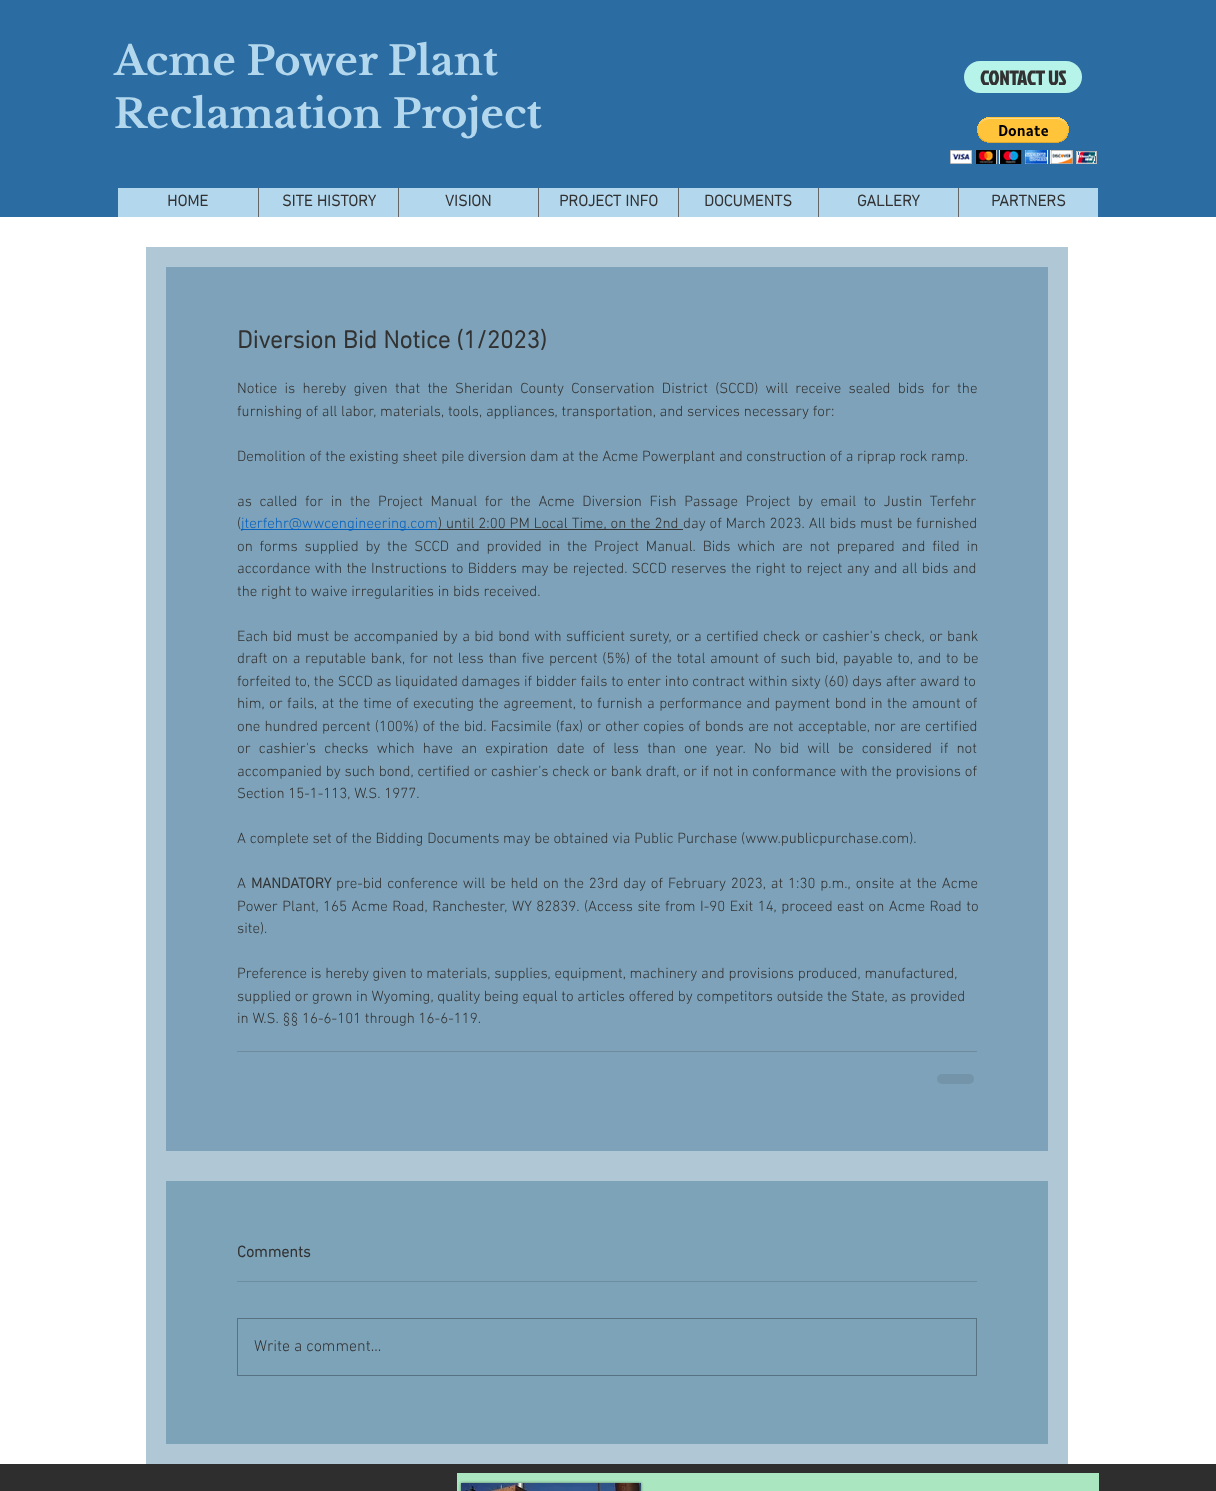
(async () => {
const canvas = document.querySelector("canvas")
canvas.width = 1216
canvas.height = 1491
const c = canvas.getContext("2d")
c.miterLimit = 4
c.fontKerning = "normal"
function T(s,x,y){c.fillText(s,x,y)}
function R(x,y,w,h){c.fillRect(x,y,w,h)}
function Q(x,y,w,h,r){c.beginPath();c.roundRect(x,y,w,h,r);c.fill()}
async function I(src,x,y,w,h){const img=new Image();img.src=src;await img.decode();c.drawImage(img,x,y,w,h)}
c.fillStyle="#fff"
R(0,0,1216,1491)
c.fillStyle="#2b6ca3"
R(0,0,1216,217)
c.font="bold 40px Libre Baskerville"
c.fillStyle="#b3d7ed"
T("Acme Power Plant",114,75)
T("Reclamation Project",114,128)
c.fillStyle="#b6f3e8"
Q(964,61,118,32,16)
c.font="bold 20px Jockey One"
c.fillStyle="#323232"
T("CONTACT US",980,85)
await I("1.png",950,117,147,47)
c.fillStyle="#b3d7ed"
R(118,188,980,29)
c.font="bold 16px 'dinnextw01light'"
c.fillStyle="#323232"
T("HOME",167,206)
c.fillStyle="#666"
R(258,188,1,29)
c.fillStyle="#323232"
T("SITE HISTORY",282,206)
c.fillStyle="#666"
R(398,188,1,29)
c.fillStyle="#323232"
T("VISION",445,206)
c.fillStyle="#666"
R(538,188,1,29)
c.fillStyle="#323232"
T("PROJECT INFO",559,206)
c.fillStyle="#666"
R(678,188,1,29)
c.fillStyle="#323232"
T("DOCUMENTS",704,206)
c.fillStyle="#666"
R(818,188,1,29)
c.fillStyle="#323232"
T("GALLERY",857,206)
c.fillStyle="#666"
R(958,188,1,29)
c.fillStyle="#323232"
T("PARTNERS",991,206)
c.fillStyle="#b0c7d5"
R(146,247,922,1217)
c.fillStyle="#7da2b9"
R(166,267,882,884)
c.font="bold 25px 'dinnextw01light'"
c.fillStyle="#323232"
T("Diversion Bid Notice (1/2023)",237,348)
c.wordSpacing="3.6px"
c.font="300 15px 'dinnextw01light'"
T("Notice is hereby given that the Sheridan County Conservation District (SCCD) will receive sealed bids for the",237,393)
c.wordSpacing="0px"
T("furnishing of all labor, materials, tools, appliances, transportation, and services necessary for:",237,416)
T("Demolition of the existing sheet pile diversion dam at the Acme Powerplant and construction of a riprap rock ramp.",237,461)
c.wordSpacing="3.9px"
T("as called for in the Project Manual for the Acme Diversion Fish Passage Project by email to Justin Terfehr",237,506)
c.wordSpacing="0px"
T("(",237,528)
c.fillStyle="#0562c1"
R(241,529,197,1)
T("jterfehr@wwcengineering.com",241,528)
c.fillStyle="#333"
R(438,529,245,1)
c.wordSpacing="0.25px"
c.fillStyle="#323232"
T(") until 2:00 PM Local Time, on the 2nd",438,528)
T("day of March 2023. All bids must be furnished",683,528)
c.wordSpacing="3.1px"
T("on forms supplied by the SCCD and provided in the Project Manual. Bids which are not prepared and filed in",237,551)
c.wordSpacing="0.6px"
T("accordance with the Instructions to Bidders may be rejected. SCCD reserves the right to reject any and all bids and",237,573)
c.wordSpacing="0px"
T("the right to waive irregularities in bids received.",237,596)
c.wordSpacing="0.7px"
T("Each bid must be accompanied by a bid bond with sufficient surety, or a certified check or cashier's check, or bank",237,641)
c.wordSpacing="1px"
T("draft on a reputable bank, for not less than five percent (5%) of the total amount of such bid, payable to, and to be",237,663)
c.wordSpacing="0px"
T("forfeited to, the SCCD as liquidated damages if bidder fails to enter into contract within sixty (60) days after award to",237,686)
c.wordSpacing="0.75px"
T("him, or fails, at the time of executing the agreement, to furnish a performance and payment bond in the amount of",237,708)
c.wordSpacing="0.5px"
T("one hundred percent (100%) of the bid. Facsimile (fax) or other copies of bonds are not acceptable, nor are certified",237,731)
c.wordSpacing="4.5px"
T("or cashier's checks which have an expiration date of less than one year. No bid will be considered if not",237,753)
c.wordSpacing="0.1px"
T("accompanied by such bond, certified or cashier’s check or bank draft, or if not in conformance with the provisions of",237,776)
c.wordSpacing="0px"
T("Section 15-1-113, W.S. 1977.",237,798)
T("A complete set of the Bidding Documents may be obtained via Public Purchase (www.publicpurchase.com).",237,843)
T("A",237,888)
c.font="bold 15px 'dinnextw01light'"
T("MANDATORY",251,888)
c.wordSpacing="1.2px"
c.font="300 15px 'dinnextw01light'"
T("pre-bid conference will be held on the 23rd day of February 2023, at 1:30 p.m., onsite at the Acme",336,888)
c.wordSpacing="0.75px"
T("Power Plant, 165 Acme Road, Ranchester, WY 82839. (Access site from I-90 Exit 14, proceed east on Acme Road to",237,911)
c.wordSpacing="0px"
T("site).",237,933)
T("Preference is hereby given to materials, supplies, equipment, machinery and provisions produced, manufactured,",237,978)
T("supplied or grown in Wyoming, quality being equal to articles offered by competitors outside the State, as provided",237,1001)
T("in W.S. §§ 16-6-101 through 16-6-119.",237,1023)
c.fillStyle="#6e8c9e"
R(237,1051,740,1)
c.fillStyle="#7495a9"
Q(937,1074,37,10,5)
c.fillStyle="#7da3b9"
R(166,1181,882,263)
c.font="bold 16px 'dinnextw01light'"
c.fillStyle="#323232"
T("Comments",237,1257)
c.fillStyle="#6e8d9e"
R(237,1281,740,1)
c.strokeStyle="#587282"
c.strokeRect(237.5,1318.5,739,57)
c.font="300 16px 'dinnextw01light'"
c.fillStyle="#323232"
T("Write a comment...",254,1351)
c.fillStyle="#2f2e2e"
R(0,1464,1216,27)
c.fillStyle="#aae7c0"
R(457,1473,642,18)
c.fillStyle="#00000080"
c.filter="blur(1.5px)"
c.beginPath()
c.rect(461,1483,180,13)
c.fill()
c.filter="none"
await I("2.png",461,1483,180,8)
})()
